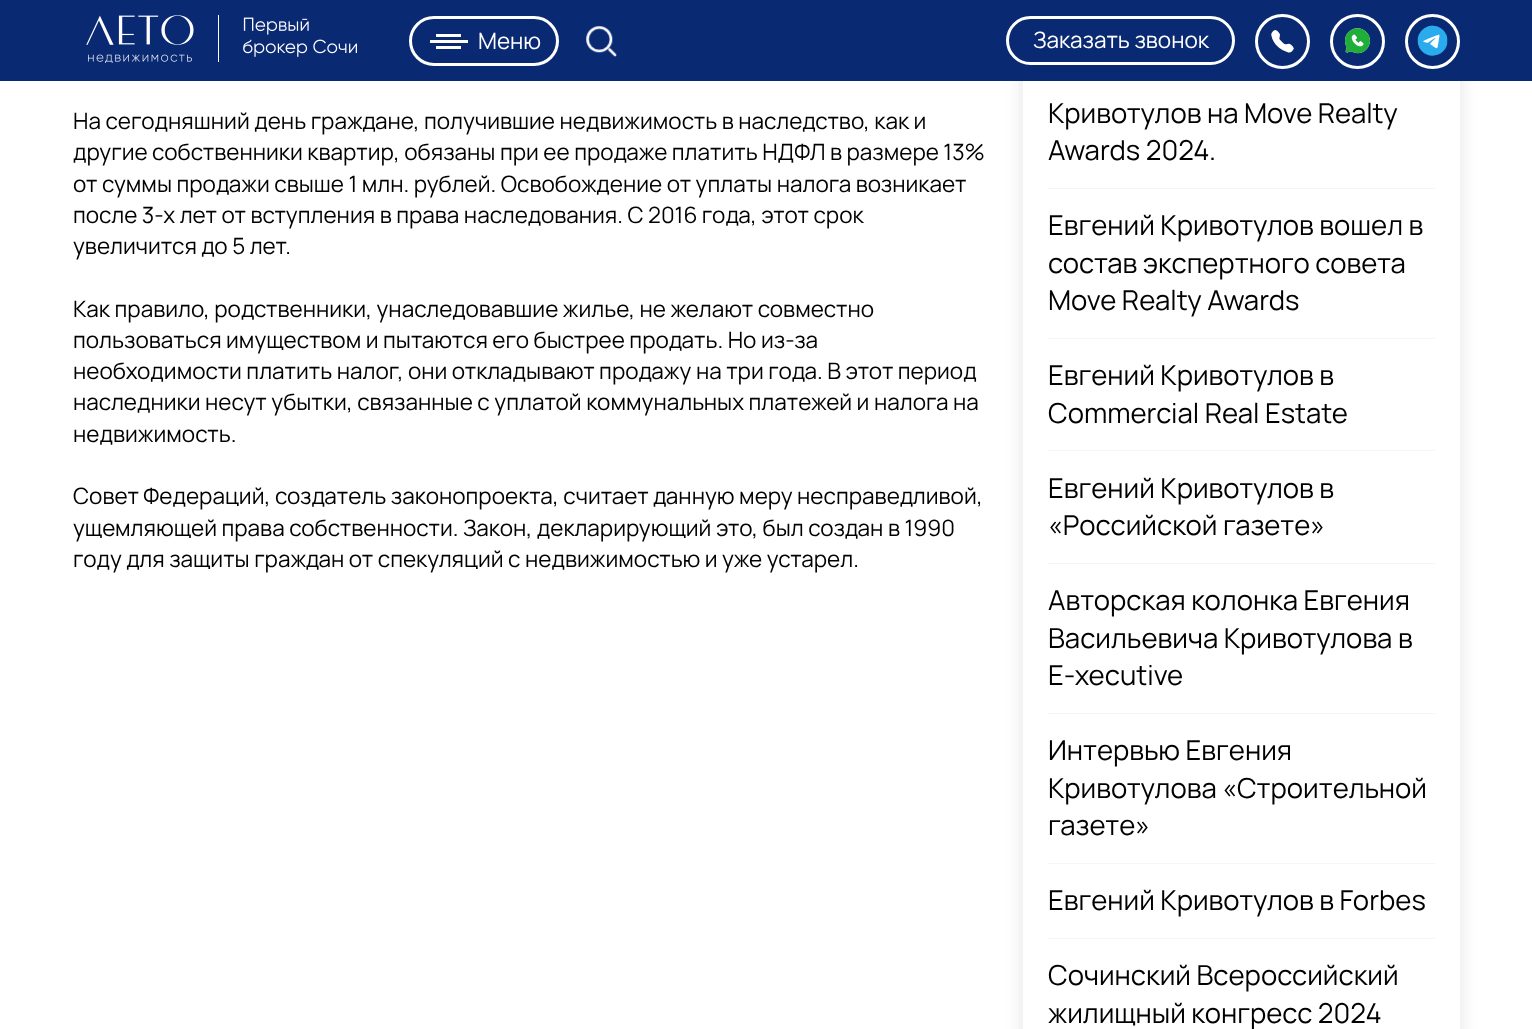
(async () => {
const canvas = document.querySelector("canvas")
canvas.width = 1532
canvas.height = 1029
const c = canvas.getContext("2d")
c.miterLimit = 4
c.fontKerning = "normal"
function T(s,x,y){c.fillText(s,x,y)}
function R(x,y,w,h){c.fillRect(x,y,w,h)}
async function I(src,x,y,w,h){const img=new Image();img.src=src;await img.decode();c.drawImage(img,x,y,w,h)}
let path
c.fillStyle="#fff"
R(0,0,1532,1029)
c.save()
path = new Path2D("M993 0h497v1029h-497zm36-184h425c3.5 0 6 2.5 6 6v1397c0 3.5-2.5 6-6 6h-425c-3.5 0-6-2.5-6-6v-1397c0-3.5 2.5-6 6-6z")
c.clip(path,"evenodd")
c.fillStyle="#e5e5e5"
c.filter="blur(9.5px)"
c.beginPath()
c.roundRect(1023,-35,437,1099,6)
c.fill()
c.filter="none"
c.restore()
c.fillStyle="#0a2973"
R(0,0,1532,81)
await I("1.png",86,15,271,48)
c.beginPath()
c.roundRect(410.5,17.5,147,47,23.5)
c.strokeStyle="#fff"
c.lineWidth=3
c.stroke()
c.fillStyle="#fff"
R(436,34,25,3)
R(430,40,38,3)
R(436,46,25,3)
c.font="22.5px Manrope"
T("Меню",478,49)
await I("2.png",586,26,31,31)
c.beginPath()
c.roundRect(1007.5,17.5,226,46,23)
c.stroke()
T("Заказать звонок",1033,48)
c.beginPath()
c.arc(1282.5,41.5,26,0,7)
c.stroke()
await I("3.png",1271,30,23,23)
c.beginPath()
c.arc(1357.5,41.5,26,0,7)
c.stroke()
await I("4.png",1345,28,25,26)
c.beginPath()
c.arc(1432.5,41.5,26,0,7)
c.stroke()
await I("5.png",1417,25,31,31)
c.fillStyle="#000"
T("На сегодняшний день граждане, получившие недвижимость в наследство, как и",73,129)
T("другие собственники квартир, обязаны при ее продаже платить НДФЛ в размере 13%",73,160)
T("от суммы продажи свыше 1 млн. рублей. Освобождение от уплаты налога возникает",73,192)
T("после 3-х лет от вступления в права наследования. С 2016 года, этот срок",73,223)
T("увеличится до 5 лет.",73,254)
T("Как правило, родственники, унаследовавшие жилье, не желают совместно",73,317)
T("пользоваться имуществом и пытаются его быстрее продать. Но из-за",73,348)
T("необходимости платить налог, они откладывают продажу на три года. В этот период",73,379)
T("наследники несут убытки, связанные с уплатой коммунальных платежей и налога на",73,410)
T("недвижимость.",73,442)
T("Совет Федераций, создатель законопроекта, считает данную меру несправедливой,",73,504)
T("ущемляющей права собственности. Закон, декларирующий это, был создан в 1990",73,536)
T("году для защиты граждан от спекуляций с недвижимостью и уже устарел.",73,567)
c.font="27.5px Manrope"
T("Кривотулов на Move Realty",1048,123)
T("Awards 2024.",1048,160)
c.fillStyle="#f5f5f5"
R(1048,188,387,1)
c.fillStyle="#000"
T("Евгений Кривотулов вошел в",1048,235)
T("состав экспертного совета",1048,273)
T("Move Realty Awards",1048,310)
c.fillStyle="#f5f5f5"
R(1048,338,387,1)
c.fillStyle="#000"
T("Евгений Кривотулов в",1048,385)
T("Commercial Real Estate",1048,423)
c.fillStyle="#f5f5f5"
R(1048,450,387,1)
c.fillStyle="#000"
T("Евгений Кривотулов в",1048,498)
T("«Российской газете»",1048,535)
c.fillStyle="#f5f5f5"
R(1048,563,387,1)
c.fillStyle="#000"
T("Авторская колонка Евгения",1048,610)
T("Васильевича Кривотулова в",1048,648)
T("E-xecutive",1048,685)
c.fillStyle="#f5f5f5"
R(1048,713,387,1)
c.fillStyle="#000"
T("Интервью Евгения",1048,760)
T("Кривотулова «Строительной",1048,798)
T("газете»",1048,835)
c.fillStyle="#f5f5f5"
R(1048,863,387,1)
c.fillStyle="#000"
T("Евгений Кривотулов в Forbes",1048,910)
c.fillStyle="#f5f5f5"
R(1048,938,387,1)
c.fillStyle="#000"
T("Сочинский Всероссийский",1048,985)
T("жилищный конгресс 2024",1048,1023)
})()
